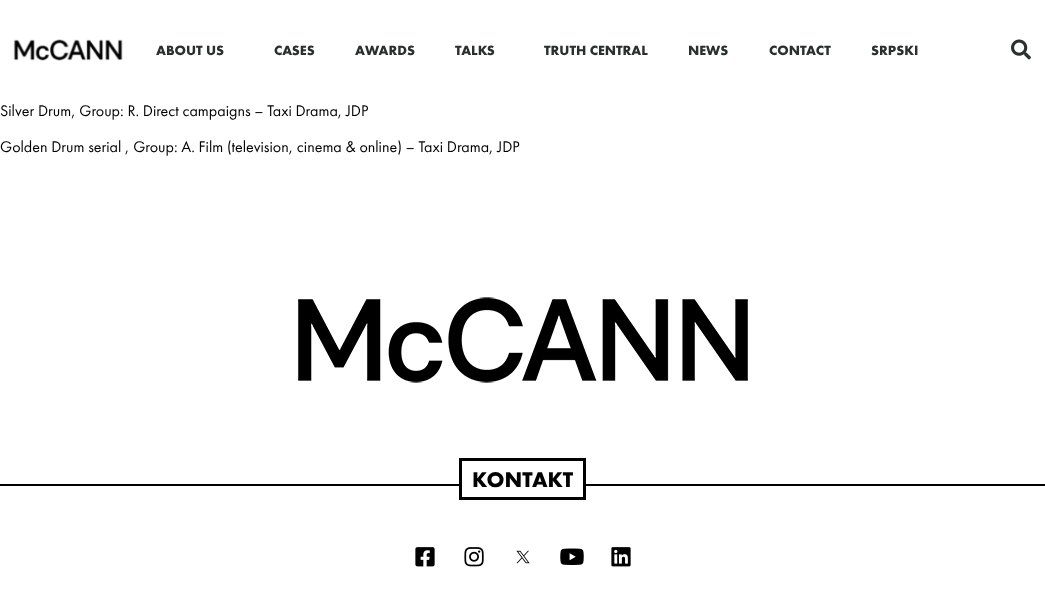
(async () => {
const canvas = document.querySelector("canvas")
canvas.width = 1045
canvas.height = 598
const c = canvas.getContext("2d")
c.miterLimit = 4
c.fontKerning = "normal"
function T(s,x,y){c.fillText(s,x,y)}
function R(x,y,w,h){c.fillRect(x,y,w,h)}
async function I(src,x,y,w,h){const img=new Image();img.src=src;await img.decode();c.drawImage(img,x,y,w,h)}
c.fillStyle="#fff"
R(0,0,1045,598)
await I("1.png",13,39,110,22)
c.font="bold 14px Futura PT"
c.fillStyle="#2a302f"
T("ABOUT US",156,55)
T("CASES",274,55)
T("AWARDS",355,55)
T("TALKS",455,55)
T("TRUTH CENTRAL",544,55)
T("NEWS",688,55)
T("CONTACT",769,55)
T("SRPSKI",871,55)
await I("2.png",1011,39,20,21)
c.font="16px Futura PT"
c.fillStyle="#000"
T("Silver Drum, Group: R. Direct campaigns – Taxi Drama, JDP",0,116)
T("Golden Drum serial , Group: A. Film (television, cinema & online) – Taxi Drama, JDP",0,152)
await I("3.png",298,297,450,86)
R(0,484,1045,2)
c.fillStyle="#fff"
R(462,484,121,2)
c.strokeStyle="#000"
c.lineWidth=3
c.strokeRect(460.5,459.5,124,39)
c.font="bold 22px Futura PT"
c.fillStyle="#000"
T("KONTAKT",472,487)
await I("4.png",415,547,20,20)
await I("5.png",464,547,20,20)
await I("6.png",516,550,14,14)
await I("7.png",560,548,24,17)
await I("8.png",611,547,20,20)
})()
